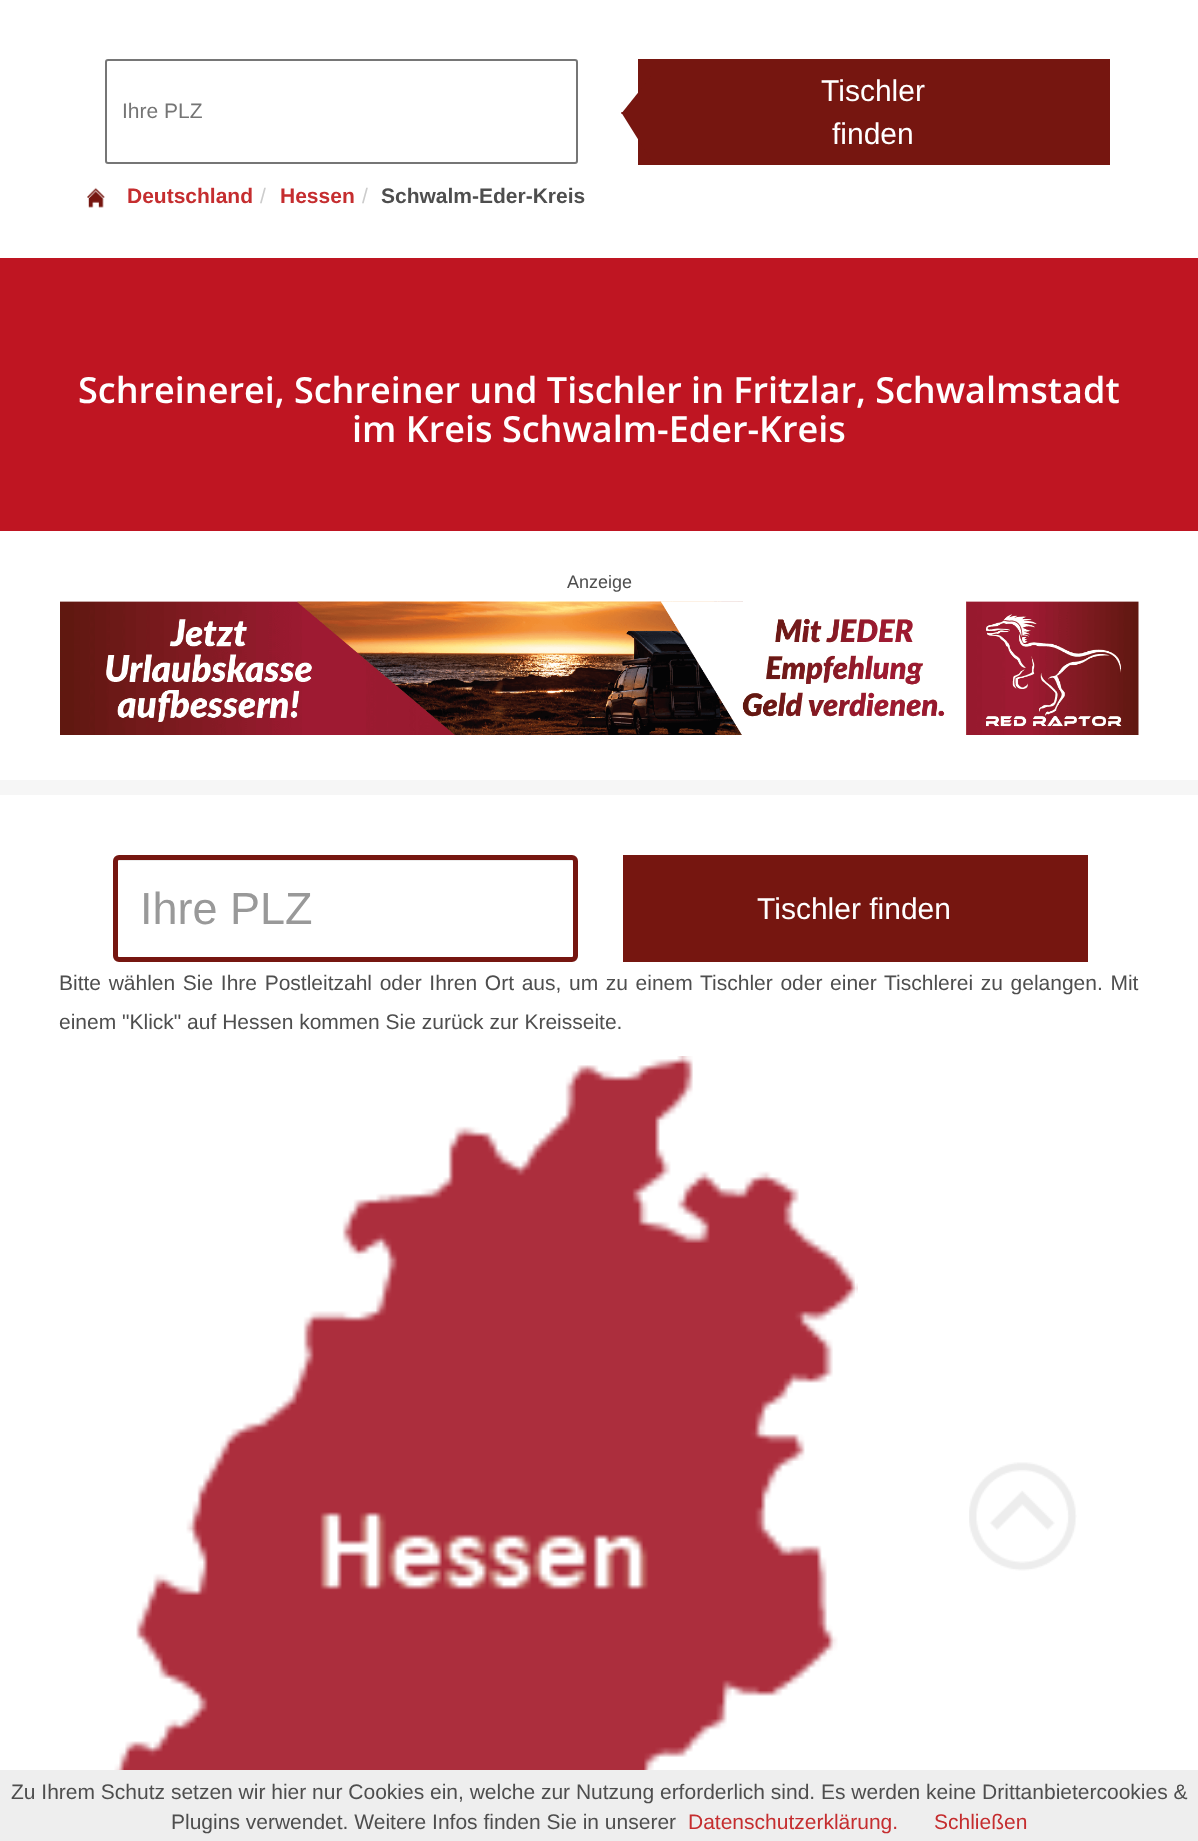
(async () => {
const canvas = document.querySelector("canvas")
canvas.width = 1198
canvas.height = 1841
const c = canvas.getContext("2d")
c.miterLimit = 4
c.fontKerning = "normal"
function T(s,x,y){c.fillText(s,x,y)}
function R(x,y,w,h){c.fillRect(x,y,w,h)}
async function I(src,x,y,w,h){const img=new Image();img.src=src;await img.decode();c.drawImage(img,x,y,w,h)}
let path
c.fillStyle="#fff"
R(0,0,1198,1841)
c.beginPath()
c.roundRect(106,60,471,103,2)
c.strokeStyle="#767676"
c.lineWidth=2
c.stroke()
c.font="21px Liberation Sans"
c.fillStyle="#757575"
T("Ihre PLZ",122,118)
c.fillStyle="#761610"
R(638,59,472,106)
path = new Path2D("M651 114h-30l30-37.5z")
c.fill(path)
c.font="30px Liberation Sans"
c.fillStyle="#fff"
T("Tischler",821,101)
T("finden",832,144)
c.fillStyle="#761610"
path = new Path2D("M621 112h30v48z")
c.fill(path)
await I("1.png",87,187,18,21)
c.font="bold 21px Liberation Sans"
c.fillStyle="#c52d2f"
T("Deutschland",127,203)
c.font="21px Liberation Sans"
c.fillStyle="#ccc"
T("/",260,203)
c.font="bold 21px Liberation Sans"
c.fillStyle="#c52d2f"
T("Hessen",280,203)
c.font="21px Liberation Sans"
c.fillStyle="#ccc"
T("/",362,203)
c.font="bold 21px Liberation Sans"
c.fillStyle="#4e4e4e"
T("Schwalm-Eder-Kreis",381,203)
c.fillStyle="#bf1522"
R(0,258,1198,273)
c.font="600 36px Open Sans"
c.fillStyle="#fff"
T("Schreinerei, Schreiner und Tischler in Fritzlar, Schwalmstadt",78,403)
T("im Kreis Schwalm-Eder-Kreis",352,442)
c.font="18px Liberation Sans"
c.fillStyle="#4e4e4e"
T("Anzeige",567,588)
await I("2.png",60,601,1079,134)
c.fillStyle="#f6f6f6"
R(0,780,1198,15)
c.fillStyle="#ececec"
path = new Path2D("M118 861h454l1 1c0-1 0-2-1-2h-454c-1 0-1 1-1 2z")
c.fill(path)
c.beginPath()
c.roundRect(115.5,857.5,460,102,3.5)
c.strokeStyle="#761610"
c.lineWidth=5
c.stroke()
c.font="45px Liberation Sans"
c.fillStyle="#999"
T("Ihre PLZ",140,924)
c.fillStyle="#761610"
R(623,855,465,107)
c.font="30px Liberation Sans"
c.fillStyle="#fff"
T("Tischler finden",757,919)
c.wordSpacing="1.8px"
c.font="21px Liberation Sans"
c.fillStyle="#4e4e4e"
T("Bitte wählen Sie Ihre Postleitzahl oder Ihren Ort aus, um zu einem Tischler oder einer Tischlerei zu gelangen. Mit",59,990)
c.wordSpacing="0px"
T("einem \"Klick\" auf Hessen kommen Sie zurück zur Kreisseite.",59,1029)
await I("3.png",114,1056,744,714)
await I("4.png",969,1462,108,109)
c.fillStyle="#eee"
R(0,1770,1198,71)
c.fillStyle="#4e4e4e"
T("Zu Ihrem Schutz setzen wir hier nur Cookies ein, welche zur Nutzung erforderlich sind. Es werden keine Drittanbietercookies &",11,1799)
T("Plugins verwendet. Weitere Infos finden Sie in unserer",171,1829)
c.fillStyle="#c52d2f"
T("Datenschutzerklärung.",688,1829)
T("Schließen",934,1829)
})()
